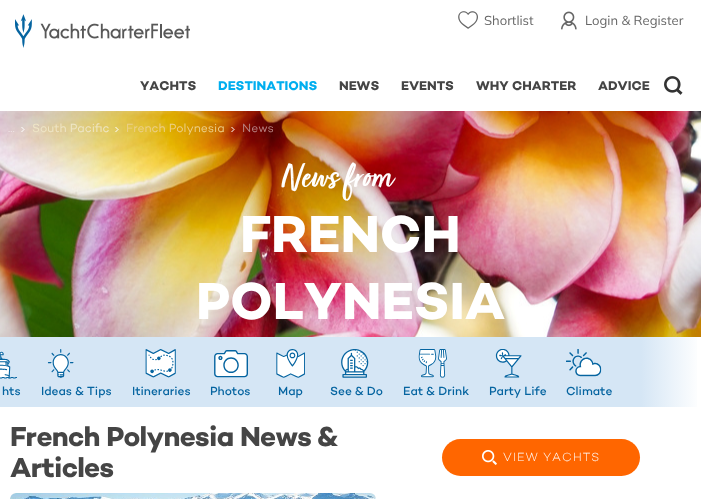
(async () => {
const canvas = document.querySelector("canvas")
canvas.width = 701
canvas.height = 499
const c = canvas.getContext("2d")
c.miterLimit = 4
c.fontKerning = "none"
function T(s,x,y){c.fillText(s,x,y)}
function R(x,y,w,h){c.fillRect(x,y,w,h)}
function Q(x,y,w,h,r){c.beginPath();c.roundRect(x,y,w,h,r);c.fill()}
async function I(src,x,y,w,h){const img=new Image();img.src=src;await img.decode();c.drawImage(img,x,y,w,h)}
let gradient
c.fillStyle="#fff"
R(0,0,701,499)
await I("1.png",15,14,175,34)
await I("2.png",458,11,20,18)
c.font="13px Mulish"
c.fillStyle="#666"
T("Shortlist",484,25)
await I("3.png",561,11,16,19)
T("Login & Register",585,25)
c.font="bold 13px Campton"
c.fillStyle="#454545"
T("YACHTS",140,90)
c.fillStyle="#00aeef"
T("DESTINATIONS",218,90)
c.fillStyle="#454545"
T("NEWS",339,90)
T("EVENTS",401,90)
T("WHY CHARTER",476,90)
T("ADVICE",598,90)
await I("4.png",664,76,19,19)
await I("8.png",0,111,701,226)
await I("5.png",21,127,4,5)
c.font="12px Campton"
c.fillStyle="#efe4e5"
T("...",8,132)
await I("6.png",115,127,4,5)
c.fillStyle="#efe6c7"
T("South Pacific",32,132)
await I("7.png",231,127,4,5)
c.fillStyle="#ecd08a"
T("French Polynesia",126,132)
c.fillStyle="#b78280"
T("News",242,132)
c.font="bold 38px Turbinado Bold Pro"
c.fillStyle="#fff"
T("News from",281,190)
c.font="bold 53px Campton"
T("FRENCH",240,252)
T("POLYNESIA",196,319)
c.fillStyle="#d5e6f5"
R(0,337,641,70)
await I("9.png",0,351,17,28)
c.font="500 12px Campton"
c.fillStyle="#0564a0"
T("hts",2,395)
await I("10.png",47,349,27,29)
T("Ideas & Tips",41,395)
await I("11.png",145,349,31,29)
T("Itineraries",132,395)
await I("12.png",214,350,34,28)
T("Photos",210,395)
await I("13.png",276,349,29,29)
T("Map",278,395)
await I("14.png",341,349,28,29)
T("See & Do",330,395)
await I("15.png",418,349,29,29)
T("Eat & Drink",403,395)
await I("16.png",495,349,27,29)
T("Party Life",489,395)
await I("17.png",566,349,36,28)
T("Climate",566,395)
gradient = c.createLinearGradient(641,372,701,372)
gradient.addColorStop(0,"#d5e6f5")
gradient.addColorStop(1,"#fff")
c.fillStyle = gradient
R(641,337,56,70)
c.letterSpacing="-0.7px"
c.font="bold 28px Campton"
c.fillStyle="#454545"
T("French Polynesia News &",10,446)
T("Articles",10,477)
c.fillStyle="#f60"
Q(442,439,198,37,18.5)
await I("18.png",482,450,15,15)
c.letterSpacing="1px"
c.font="300 12px Campton"
c.fillStyle="#fff"
T("VIEW YACHTS",503,461)
c.fillStyle="#eee"
Q(10,493,366,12,6)
await I("19.png",10,493,366,6)
})()
